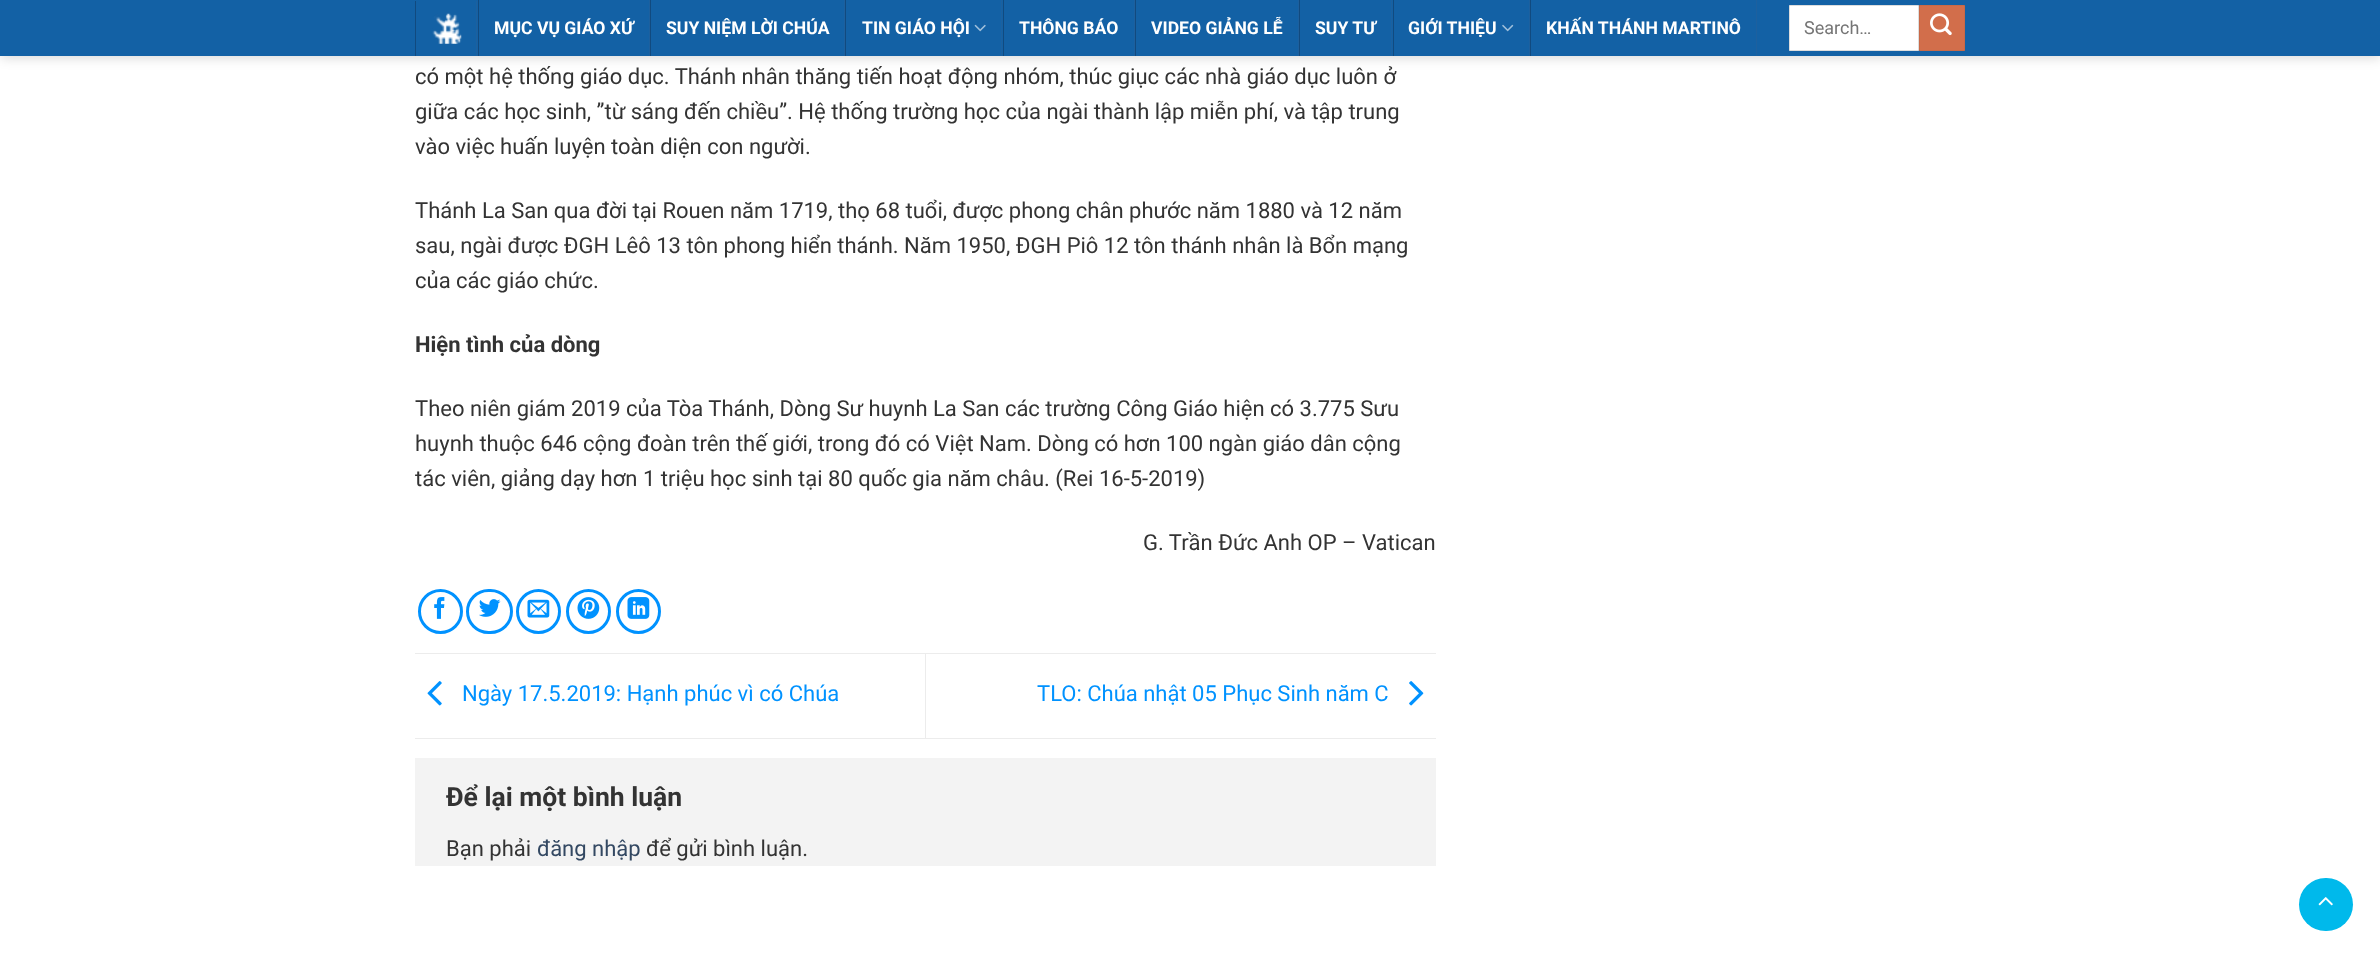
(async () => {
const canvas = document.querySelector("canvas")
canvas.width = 2380
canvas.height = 956
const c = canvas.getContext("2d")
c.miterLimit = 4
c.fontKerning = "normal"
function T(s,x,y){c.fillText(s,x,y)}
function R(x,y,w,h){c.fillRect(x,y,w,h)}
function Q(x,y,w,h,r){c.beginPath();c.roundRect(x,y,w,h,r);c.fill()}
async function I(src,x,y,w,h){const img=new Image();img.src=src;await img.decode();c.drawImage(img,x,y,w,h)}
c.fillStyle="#fff"
R(0,0,2380,956)
c.fillStyle="#00000026"
c.filter="blur(6px)"
c.beginPath()
c.rect(1,1,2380,57)
c.fill()
c.filter="none"
c.fillStyle="#1361a5"
R(0,0,2380,56)
c.fillStyle="#1d609e"
R(476,1,1,55)
c.fillStyle="#114a7f"
R(415,1,1,55)
await I("1.png",432,13,30,31)
c.fillStyle="#1d609e"
R(649,0,1,56)
c.fillStyle="#114a7f"
R(478,0,1,56)
c.font="bold 17.6px Roboto"
c.fillStyle="#fff"
T("MỤC VỤ GIÁO XỨ",494,34)
c.fillStyle="#1d609e"
R(844,0,1,56)
c.fillStyle="#114a7f"
R(650,0,1,56)
c.fillStyle="#fff"
T("SUY NIỆM LỜI CHÚA",666,34)
c.fillStyle="#1d609e"
R(1001,0,1,56)
c.fillStyle="#114a7f"
R(845,0,1,56)
c.fillStyle="#fff"
T("TIN GIÁO HỘI",862,34)
await I("2.png",974,24,12,8)
c.fillStyle="#1d609e"
R(1134,0,1,56)
c.fillStyle="#114a7f"
R(1003,0,1,56)
c.fillStyle="#fff"
T("THÔNG BÁO",1019,34)
c.fillStyle="#1d609e"
R(1298,0,1,56)
c.fillStyle="#114a7f"
R(1135,0,1,56)
c.fillStyle="#fff"
T("VIDEO GIẢNG LỄ",1151,34)
c.fillStyle="#1d609e"
R(1391,0,1,56)
c.fillStyle="#114a7f"
R(1299,0,1,56)
c.fillStyle="#fff"
T("SUY TƯ",1315,34)
c.fillStyle="#1d609e"
R(1529,0,1,56)
c.fillStyle="#114a7f"
R(1393,0,1,56)
c.fillStyle="#fff"
T("GIỚI THIỆU",1408,34)
await I("3.png",1502,24,12,8)
c.fillStyle="#1d609e"
R(1756,0,1,56)
c.fillStyle="#114a7f"
R(1530,0,1,56)
c.fillStyle="#fff"
T("KHẤN THÁNH MARTINÔ",1546,34)
c.beginPath()
c.rect(1789.5,5.5,129,45)
c.fill()
c.strokeStyle="#ddd"
c.stroke()
c.font="18px Roboto"
c.fillStyle="#757575"
T("Search…",1804,34)
c.fillStyle="#d26e4b"
c.beginPath()
c.rect(1919.5,5.5,45,45)
c.fill()
c.strokeStyle="#c86947"
c.stroke()
await I("4.png",1930,13,22,23)
c.font="22px Roboto"
c.fillStyle="#333"
T("có một hệ thống giáo dục. Thánh nhân thăng tiến hoạt động nhóm, thúc giục các nhà giáo dục luôn ở",415,84)
T("giữa các học sinh, ”từ sáng đến chiều”. Hệ thống trường học của ngài thành lập miễn phí, và tập trung",415,119)
T("vào việc huấn luyện toàn diện con người.",415,154)
T("Thánh La San qua đời tại Rouen năm 1719, thọ 68 tuổi, được phong chân phước năm 1880 và 12 năm",415,218)
T("sau, ngài được ĐGH Lêô 13 tôn phong hiển thánh. Năm 1950, ĐGH Piô 12 tôn thánh nhân là Bổn mạng",415,253)
T("của các giáo chức.",415,288)
c.font="bold 22px Roboto"
T("Hiện tình của dòng",415,352)
c.font="22px Roboto"
T("Theo niên giám 2019 của Tòa Thánh, Dòng Sư huynh La San các trường Công Giáo hiện có 3.775 Sưu",415,416)
T("huynh thuộc 646 cộng đoàn trên thế giới, trong đó có Việt Nam. Dòng có hơn 100 ngàn giáo dân cộng",415,451)
T("tác viên, giảng dạy hơn 1 triệu học sinh tại 80 quốc gia năm châu. (Rei 16-5-2019)",415,486)
T("G. Trần Đức Anh OP – Vatican",1143,550)
c.beginPath()
c.arc(440.5,611.5,21,0,7)
c.strokeStyle="#0092ff"
c.lineWidth=3
c.stroke()
await I("5.png",434,597,11,22)
c.beginPath()
c.roundRect(467.5,590.5,44,42,21)
c.stroke()
await I("6.png",479,599,22,18)
c.beginPath()
c.arc(538.5,611.5,21,0,7)
c.stroke()
await I("7.png",527,599,23,19)
c.beginPath()
c.arc(588.5,611.5,21,0,7)
c.stroke()
await I("8.png",577,597,23,22)
c.beginPath()
c.arc(638.5,611.5,21,0,7)
c.stroke()
await I("9.png",627,597,23,22)
c.fillStyle="#ececec"
R(415,653,1021,1)
R(415,738,1021,1)
await I("10.png",427,681,15,25)
c.fillStyle="#0092ff"
T("Ngày 17.5.2019: Hạnh phúc vì có Chúa",462,701)
c.fillStyle="#ececec"
R(925,654,1,84)
c.fillStyle="#0092ff"
T("TLO: Chúa nhật 05 Phục Sinh năm C",1037,701)
await I("11.png",1409,681,15,25)
c.fillStyle="#f3f3f3"
R(415,758,1021,108)
c.font="bold 26.5px Roboto"
c.fillStyle="#333"
T("Để lại một bình luận",446,806)
c.font="22px Roboto"
T("Bạn phải",446,856)
c.fillStyle="#334862"
T("đăng nhập",537,856)
c.fillStyle="#333"
T("để gửi bình luận.",646,856)
c.fillStyle="#00b9eb"
Q(2299,878,54,53,26.5)
await I("12.png",2318,897,15,9)
})()
